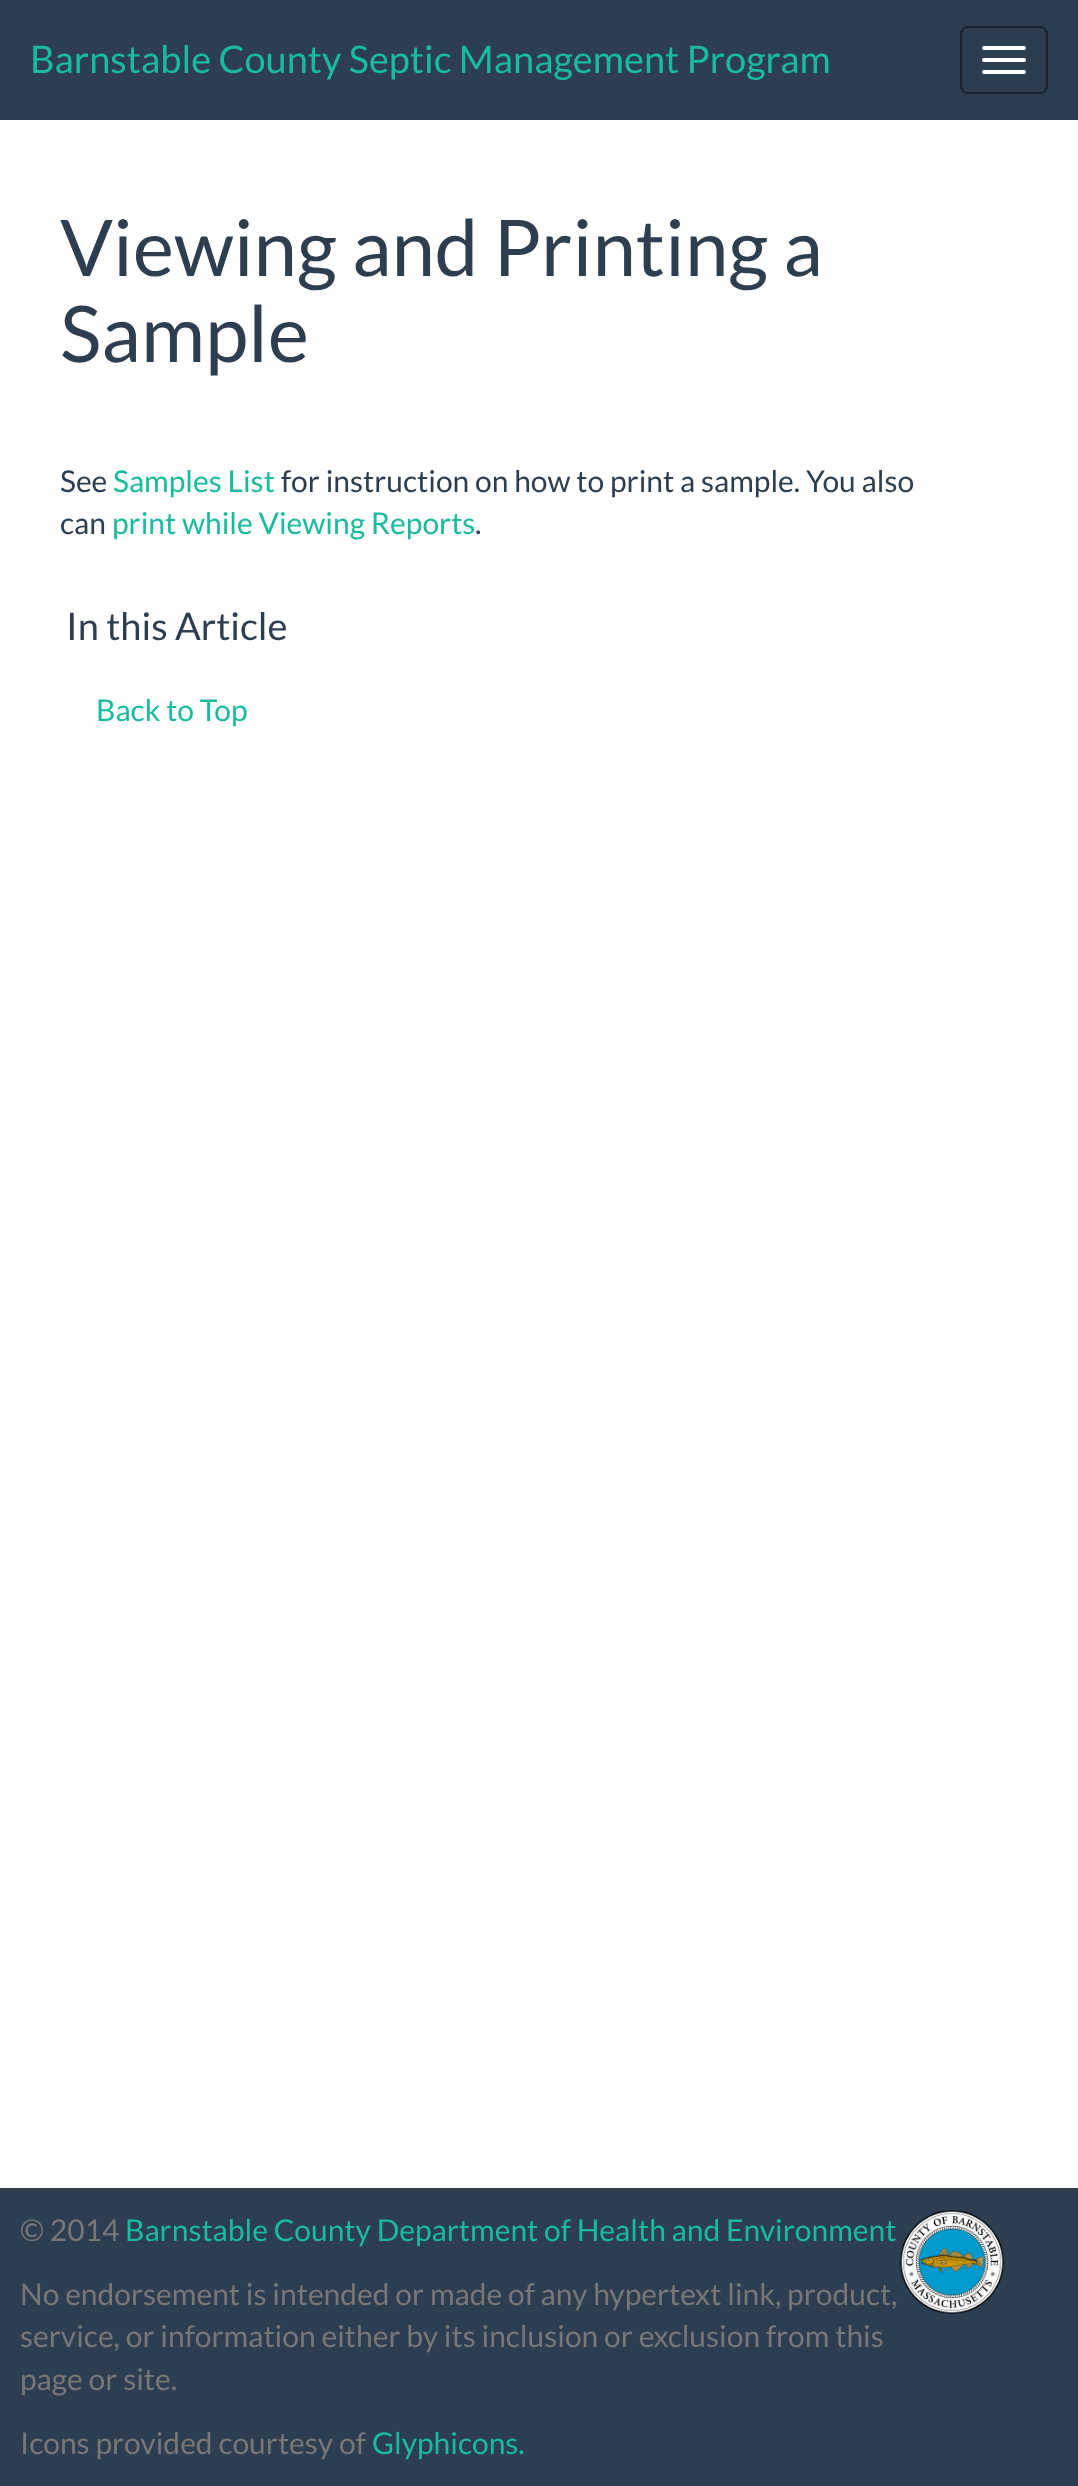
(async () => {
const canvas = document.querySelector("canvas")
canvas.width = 1078
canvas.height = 2486
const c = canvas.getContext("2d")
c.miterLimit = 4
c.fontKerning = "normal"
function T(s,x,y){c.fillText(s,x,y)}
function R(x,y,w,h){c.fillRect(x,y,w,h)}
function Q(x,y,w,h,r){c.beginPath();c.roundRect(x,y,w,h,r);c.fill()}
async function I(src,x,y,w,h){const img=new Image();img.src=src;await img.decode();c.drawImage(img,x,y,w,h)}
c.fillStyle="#fff"
R(0,0,1078,2486)
c.fillStyle="#2c3e50"
R(0,0,1078,120)
c.font="38px Lato"
c.fillStyle="#18bc9c"
T("Barnstable County Septic Management Program",30,73)
c.beginPath()
c.roundRect(961,27,86,66,7)
c.strokeStyle="#1a242f"
c.lineWidth=2
c.stroke()
c.fillStyle="#fff"
Q(982,46,44,4,2)
Q(982,58,44,4,2)
Q(982,70,44,4,2)
c.font="78px Lato"
c.fillStyle="#2c3e50"
T("Viewing and Printing a",60,276)
T("Sample",60,362)
c.font="30px Lato"
T("See",60,492)
c.fillStyle="#18bc9c"
T("Samples List",113,492)
c.fillStyle="#2c3e50"
T("for instruction on how to print a sample. You also",281,492)
T("can",60,534)
c.fillStyle="#18bc9c"
T("print while Viewing Reports",112,534)
c.fillStyle="#2c3e50"
T(".",475,534)
c.font="38px Lato"
T("In this Article",66,640)
c.font="30px Lato"
c.fillStyle="#18bc9c"
T("Back to Top",96,721)
c.fillStyle="#2c3e50"
R(0,2188,1078,298)
c.fillStyle="#777"
T("© 2014",20,2241)
c.fillStyle="#18bc9c"
T("Barnstable County Department of Health and Environment",125,2241)
c.fillStyle="#777"
T("No endorsement is intended or made of any hypertext link, product,",20,2305)
T("service, or information either by its inclusion or exclusion from this",20,2347)
T("page or site.",20,2390)
T("Icons provided courtesy of",20,2454)
c.fillStyle="#18bc9c"
T("Glyphicons.",372,2454)
await I("1.png",900,2210,105,105)
})()
